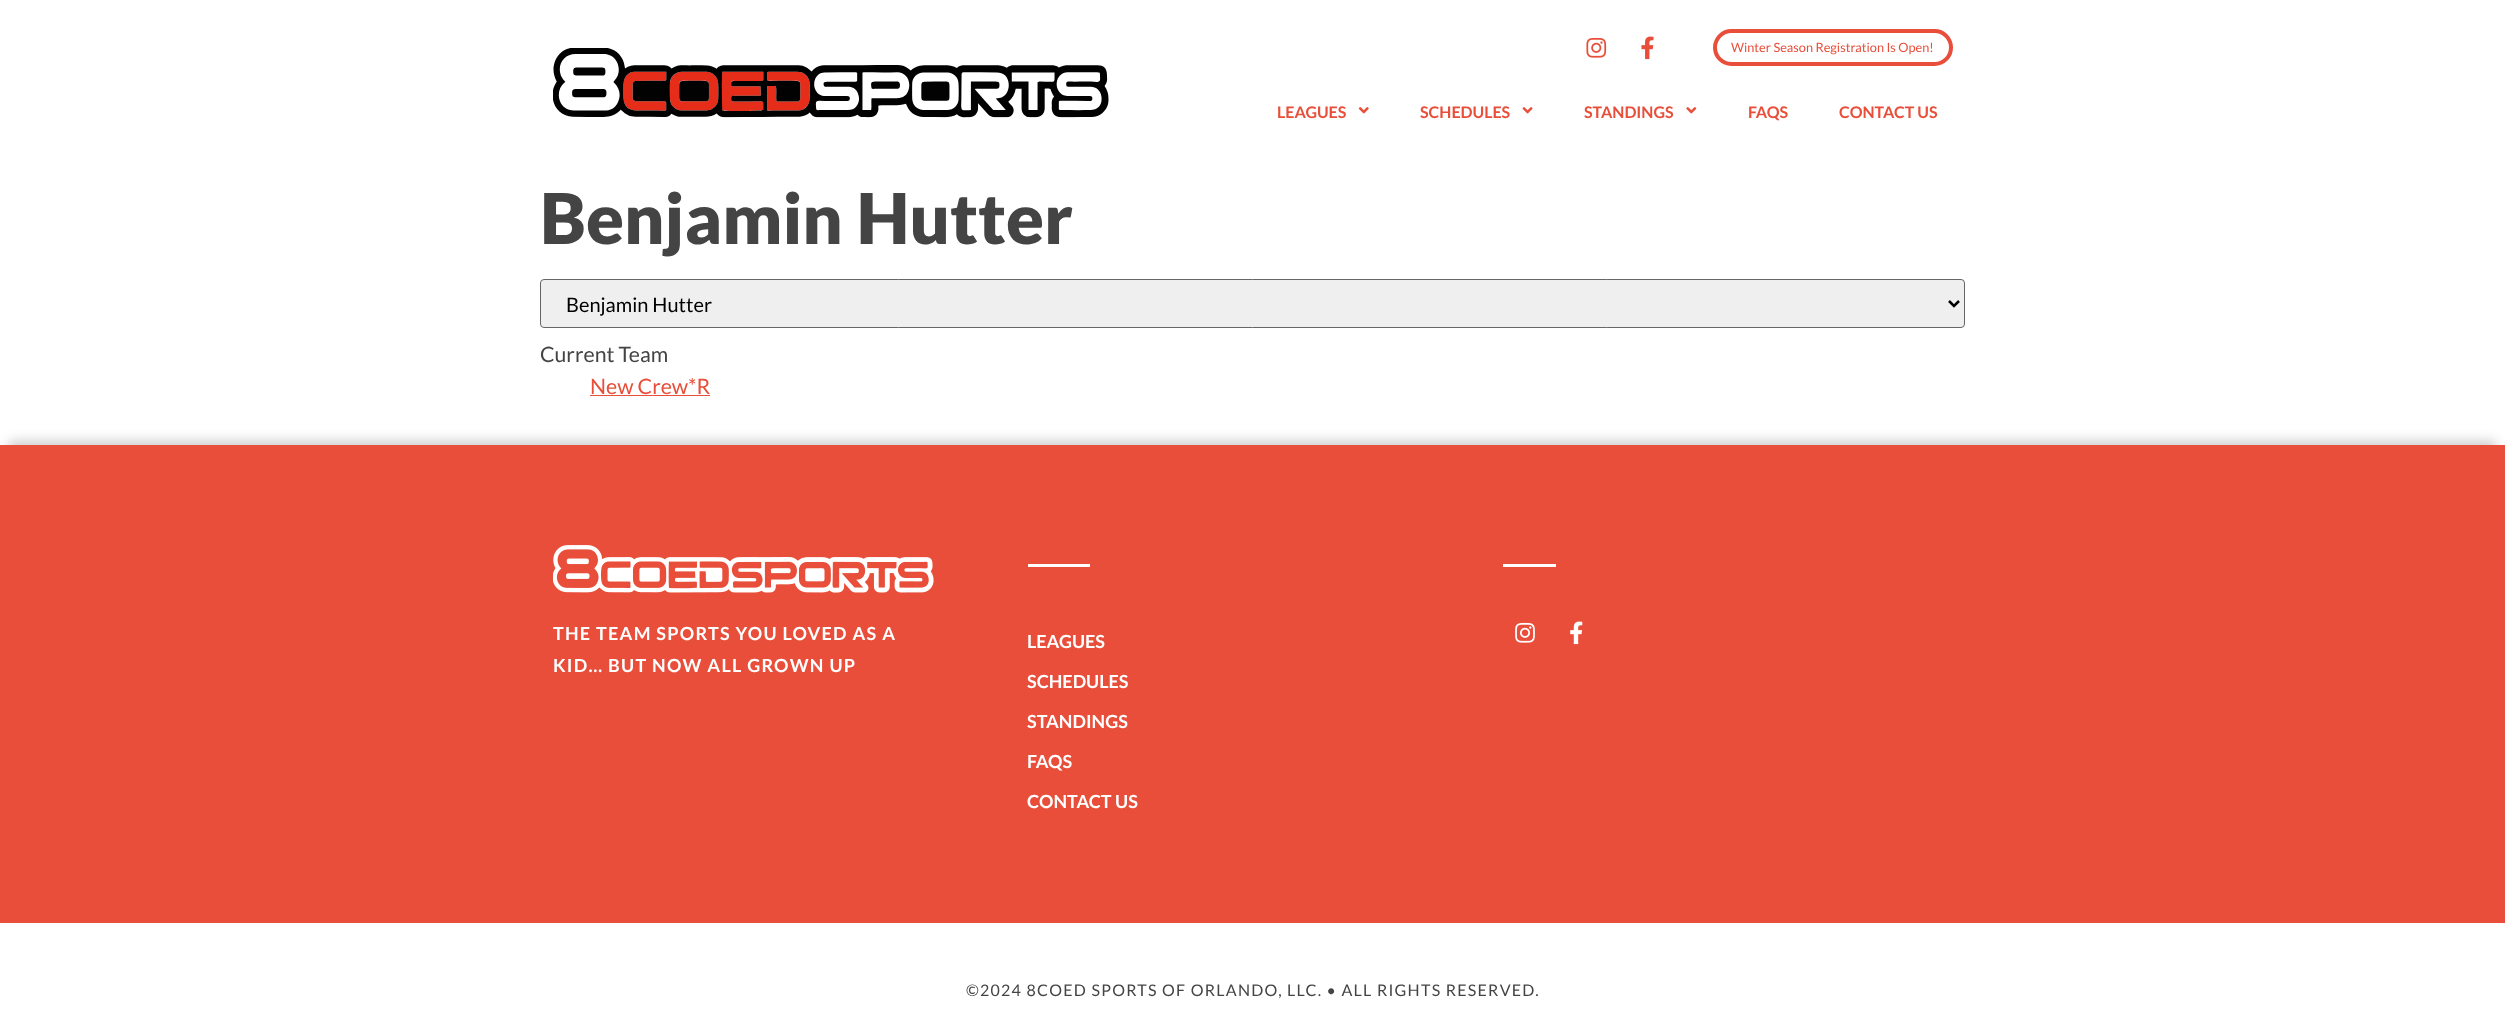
(async () => {
const canvas = document.querySelector("canvas")
canvas.width = 2505
canvas.height = 1022
const c = canvas.getContext("2d")
c.miterLimit = 4
c.fontKerning = "normal"
function T(s,x,y){c.fillText(s,x,y)}
function R(x,y,w,h){c.fillRect(x,y,w,h)}
async function I(src,x,y,w,h){const img=new Image();img.src=src;await img.decode();c.drawImage(img,x,y,w,h)}
let path
c.fillStyle="#fff"
R(0,0,2505,1022)
await I("1.png",553,48,556,70)
await I("2.png",1586,37,21,21)
await I("3.png",1641,36,13,24)
c.beginPath()
c.roundRect(1715,31,236,33,16.5)
c.strokeStyle="#e84e39"
c.lineWidth=4
c.stroke()
c.font="12.75px Lato"
c.fillStyle="#e84e39"
T("Winter Season Registration Is Open!",1731,52)
c.font="bold 16px Lato"
T("LEAGUES",1277,118)
await I("4.png",1358,107,11,7)
T("SCHEDULES",1420,118)
await I("5.png",1522,107,11,7)
T("STANDINGS",1584,118)
await I("6.png",1686,107,11,7)
T("FAQS",1748,118)
T("CONTACT US",1839,118)
c.font="900 70px Lato"
c.fillStyle="#444"
T("Benjamin Hutter",540,244)
c.fillStyle="#efefef"
c.beginPath()
c.roundRect(540.5,279.5,1424,48,3.5)
c.fill()
c.strokeStyle="#666"
c.lineWidth=1
c.stroke()
path = new Path2D("M1949 301l5 5l5-5")
c.strokeStyle="#000"
c.lineWidth=2.5
c.stroke(path)
c.font="20px Lato"
c.fillStyle="#000"
T("Benjamin Hutter",566,312)
c.font="21.25px Lato"
c.fillStyle="#444"
T("Current Team",540,362)
c.fillStyle="#e84e39"
T("New Crew*R",590,394)
R(590,395,120,1)
c.fillStyle="#00000033"
c.filter="blur(6px)"
c.beginPath()
c.rect(9,441,2487,460)
c.fill()
c.filter="none"
c.fillStyle="#e84e39"
R(0,445,2505,478)
await I("7.png",553,545,381,48)
c.letterSpacing="1.25px"
c.font="bold 18px Lato"
c.fillStyle="#fff"
T("THE TEAM SPORTS YOU LOVED AS A",553,640)
T("KID… BUT NOW ALL GROWN UP",553,672)
R(1028,564,62,3)
c.letterSpacing="0px"
T("LEAGUES",1027,648)
T("SCHEDULES",1027,688)
T("STANDINGS",1027,728)
T("FAQS",1027,768)
T("CONTACT US",1027,808)
R(1503,564,53,3)
await I("8.png",1515,622,20,21)
await I("9.png",1570,621,13,24)
c.letterSpacing="1.25px"
c.font="16px Lato"
c.fillStyle="#444"
T("©2024 8COED SPORTS OF ORLANDO, LLC. • ALL RIGHTS RESERVED.",966,996)
})()
